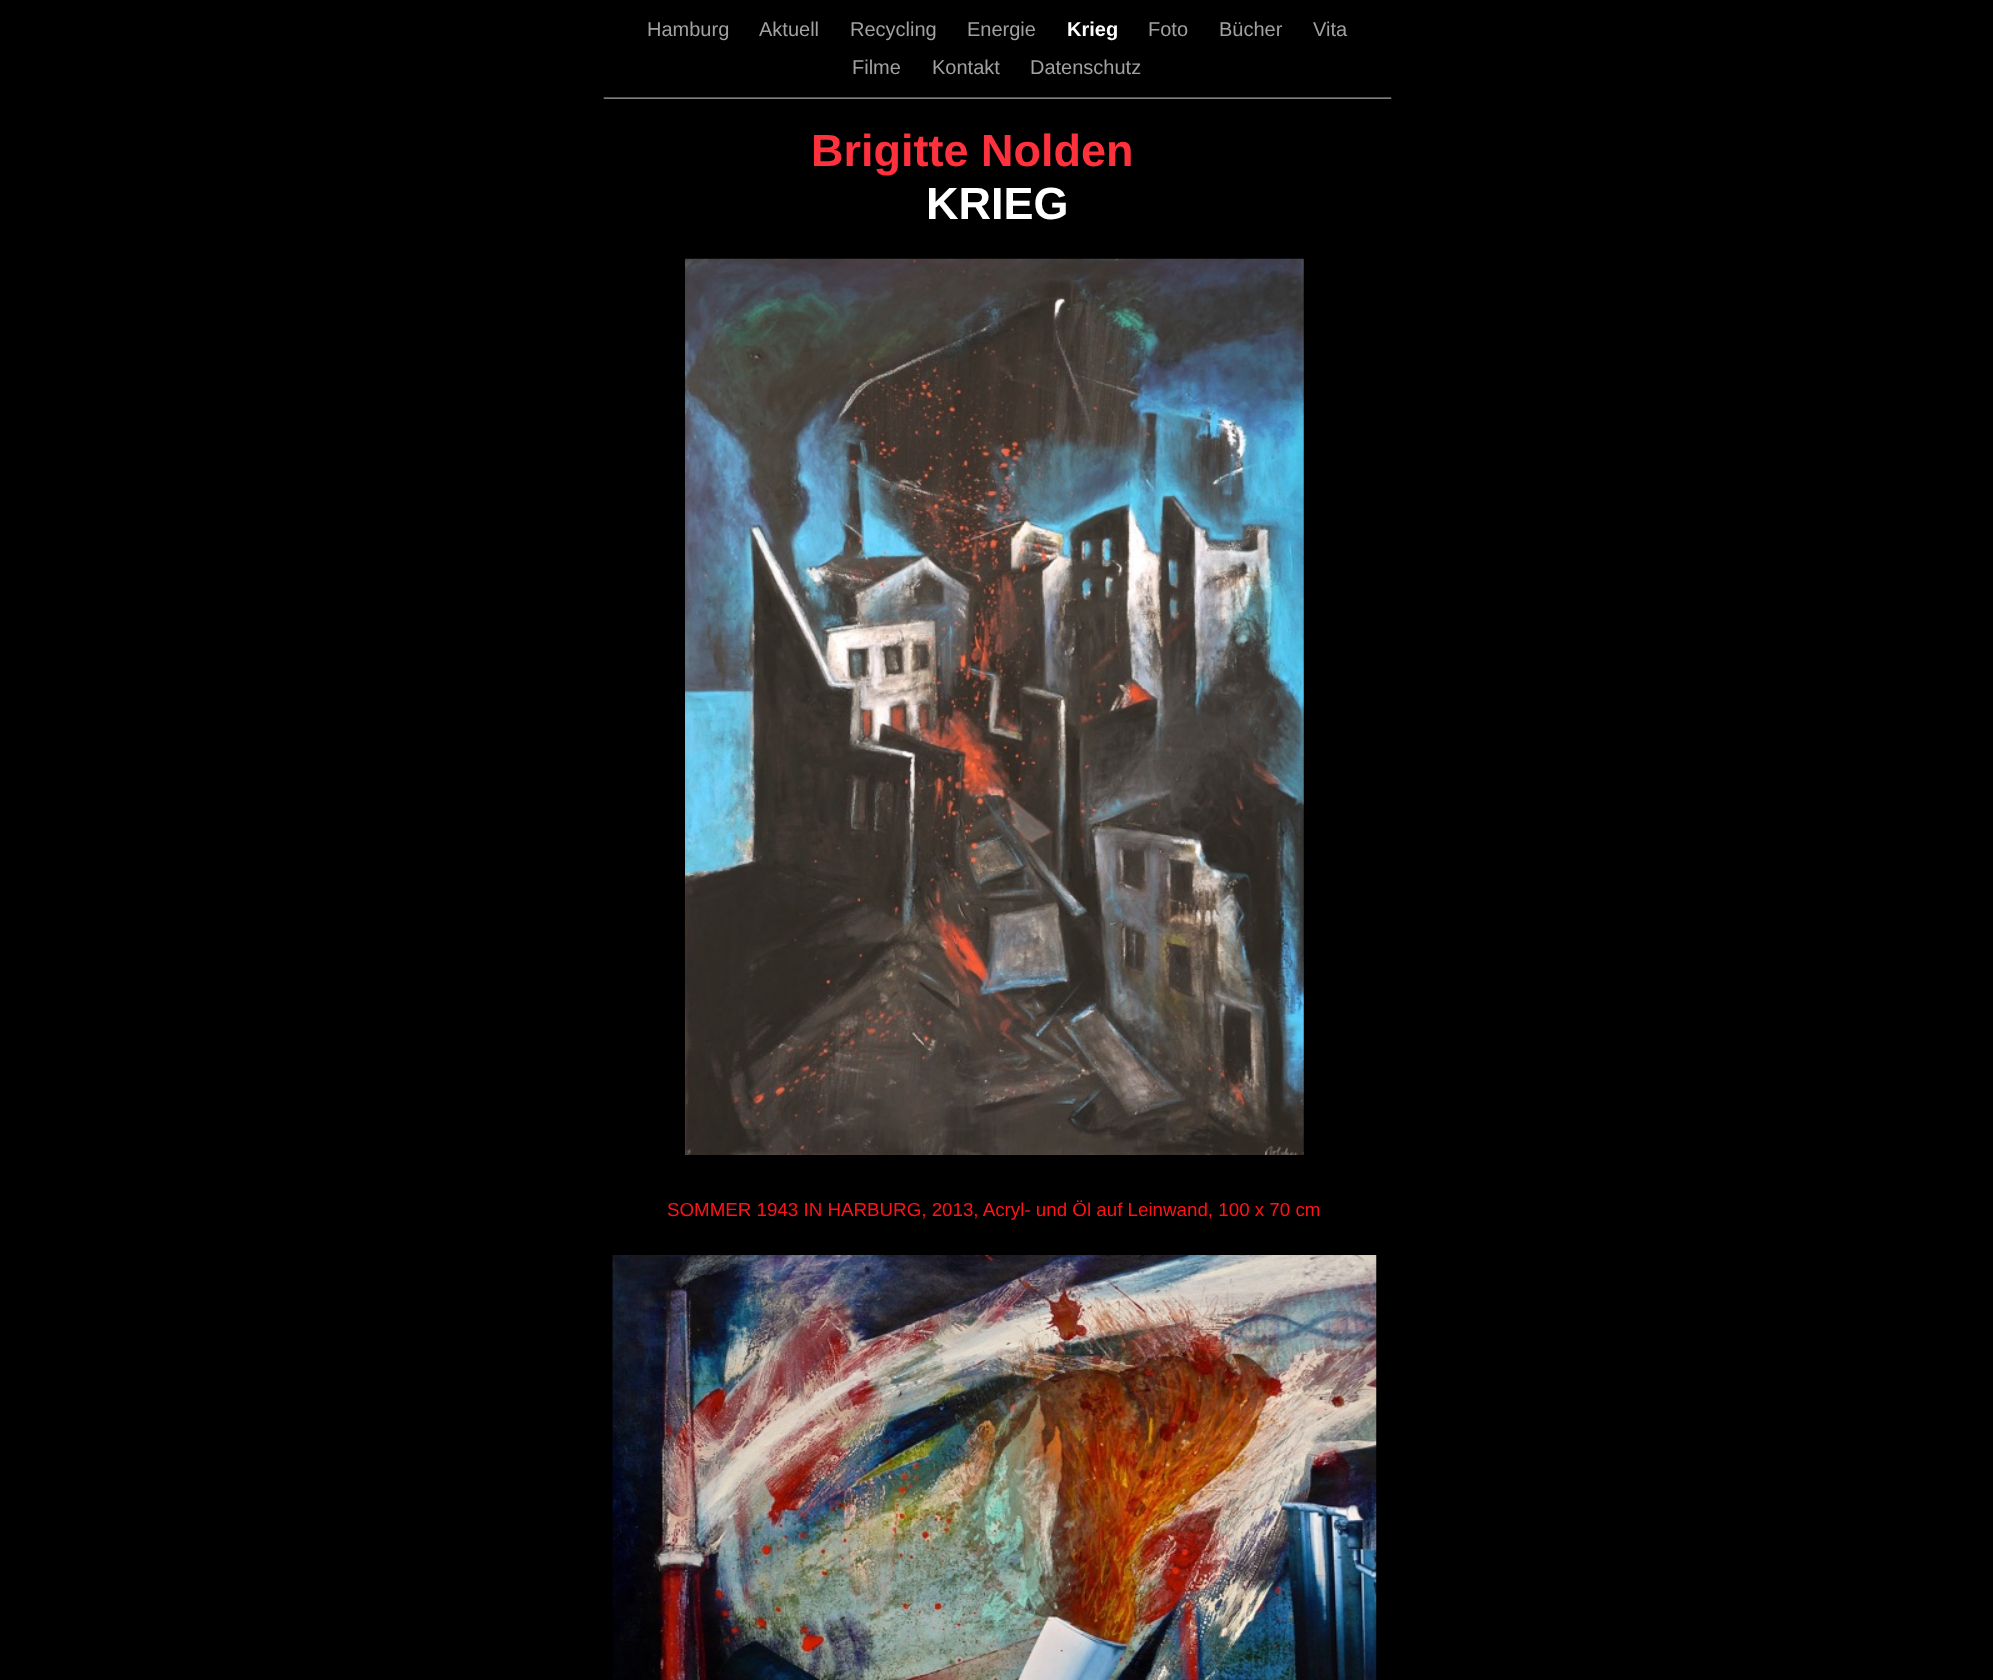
(async () => {
const canvas = document.querySelector("canvas")
canvas.width = 1993
canvas.height = 1680
const c = canvas.getContext("2d")
c.miterLimit = 4
c.fontKerning = "normal"
function T(s,x,y){c.fillText(s,x,y)}
function R(x,y,w,h){c.fillRect(x,y,w,h)}
async function I(src,x,y,w,h){const img=new Image();img.src=src;await img.decode();c.drawImage(img,x,y,w,h)}
c.fillStyle="#000"
R(0,0,1993,1680)
c.font="20px Liberation Sans"
c.fillStyle="#a1a1a1"
T("Hamburg",647,36)
T("Aktuell",759,36)
T("Recycling",850,36)
T("Energie",967,36)
c.font="bold 20px Liberation Sans"
c.fillStyle="#fff"
T("Krieg",1067,36)
c.font="20px Liberation Sans"
c.fillStyle="#a1a1a1"
T("Foto",1148,36)
T("Bücher",1219,36)
T("Vita",1313,36)
T("Filme",852,74)
T("Kontakt",932,74)
T("Datenschutz",1030,74)
await I("1.png",603,97,789,2)
c.font="bold 45px Liberation Sans"
c.fillStyle="#ff313d"
T("Brigitte Nolden",811,166)
c.fillStyle="#fff"
T("KRIEG",926,219)
await I("2.png",685,258,619,897)
c.font="18.75px Liberation Sans"
c.fillStyle="#ff1318"
T("SOMMER 1943 IN HARBURG, 2013, Acryl- und Öl auf Leinwand, 100 x 70 cm",667,1216)
await I("3.png",612,1255,765,425)
})()
